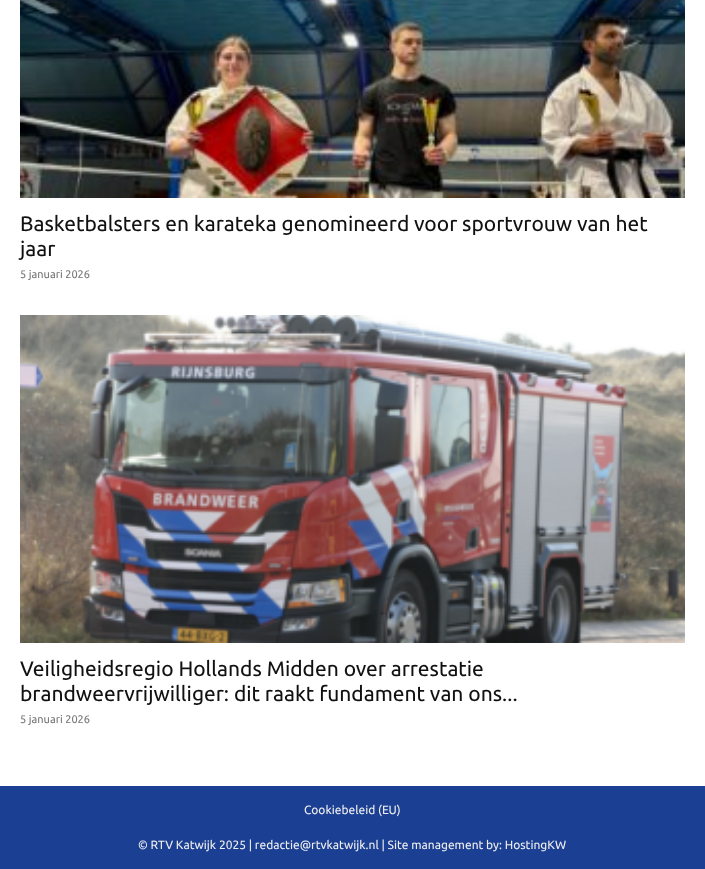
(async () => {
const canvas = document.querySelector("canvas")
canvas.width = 705
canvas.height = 869
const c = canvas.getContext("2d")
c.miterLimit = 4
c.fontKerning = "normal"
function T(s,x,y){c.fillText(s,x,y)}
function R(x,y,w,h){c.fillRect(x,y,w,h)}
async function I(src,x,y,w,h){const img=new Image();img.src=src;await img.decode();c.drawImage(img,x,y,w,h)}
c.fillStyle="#fff"
R(0,0,705,869)
await I("1.png",20,0,665,198)
c.font="21px Ubuntu"
c.fillStyle="#111"
T("Basketbalsters en karateka genomineerd voor sportvrouw van het",20,231)
T("jaar",20,256)
c.font="11px Ubuntu"
c.fillStyle="#767676"
T("5 januari 2026",20,278)
await I("2.png",20,315,665,328)
c.font="21px Ubuntu"
c.fillStyle="#111"
T("Veiligheidsregio Hollands Midden over arrestatie",20,676)
T("brandweervrijwilliger: dit raakt fundament van ons...",20,701)
c.font="11px Ubuntu"
c.fillStyle="#767676"
T("5 januari 2026",20,723)
c.fillStyle="#1a3f93"
R(0,786,705,83)
c.font="12px Ubuntu"
c.fillStyle="#eee"
T("Cookiebeleid (EU)",304,814)
T("© RTV Katwijk 2025 | redactie@rtvkatwijk.nl | Site management by: HostingKW",138,849)
})()
